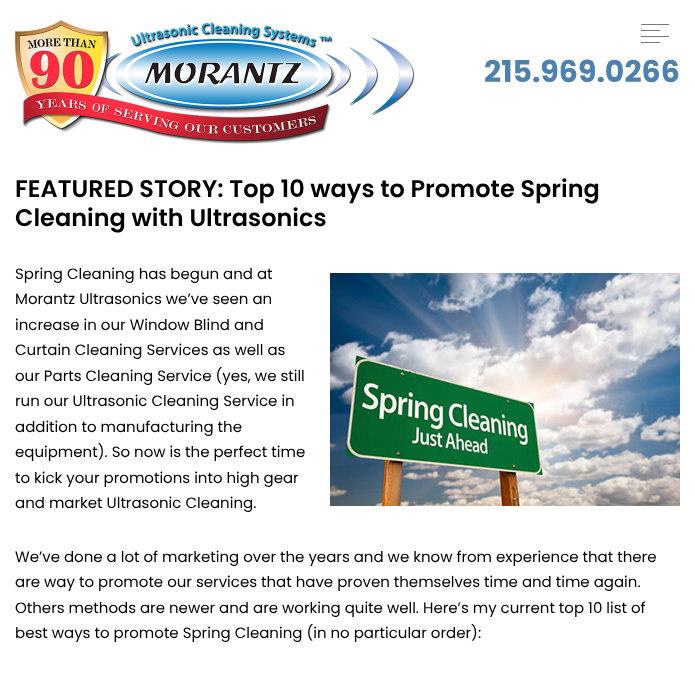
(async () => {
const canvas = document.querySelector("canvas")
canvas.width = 695
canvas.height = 684
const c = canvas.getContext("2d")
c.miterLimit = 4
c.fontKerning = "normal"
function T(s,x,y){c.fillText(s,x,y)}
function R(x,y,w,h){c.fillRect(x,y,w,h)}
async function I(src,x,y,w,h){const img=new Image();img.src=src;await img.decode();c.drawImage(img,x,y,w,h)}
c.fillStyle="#fff"
R(0,0,695,684)
c.fillStyle="#747a7d"
R(641,24,28,1)
R(641,30,19,1)
R(641,36,28,1)
R(641,42,19,1)
await I("1.png",15,20,400,124)
c.font="bold 30px Poppins"
c.fillStyle="#4c82b1"
T("215.969.0266",484,82)
c.font="600 24px Poppins"
c.fillStyle="#000"
T("FEATURED STORY: Top 10 ways to Promote Spring",15,197)
T("Cleaning with Ultrasonics",15,226)
c.font="15px Poppins"
T("Spring Cleaning has begun and at",15,279)
await I("2.png",330,273,350,233)
T("Morantz Ultrasonics we’ve seen an",15,304)
T("increase in our Window Blind and",15,330)
T("Curtain Cleaning Services as well as",15,355)
T("our Parts Cleaning Service (yes, we still",15,381)
T("run our Ultrasonic Cleaning Service in",15,406)
T("addition to manufacturing the",15,432)
T("equipment). So now is the perfect time",15,457)
T("to kick your promotions into high gear",15,483)
T("and market Ultrasonic Cleaning.",15,508)
T("We’ve done a lot of marketing over the years and we know from experience that there",15,562)
T("are way to promote our services that have proven themselves time and time again.",15,587)
T("Others methods are newer and are working quite well. Here’s my current top 10 list of",15,613)
T("best ways to promote Spring Cleaning (in no particular order):",15,638)
})()
